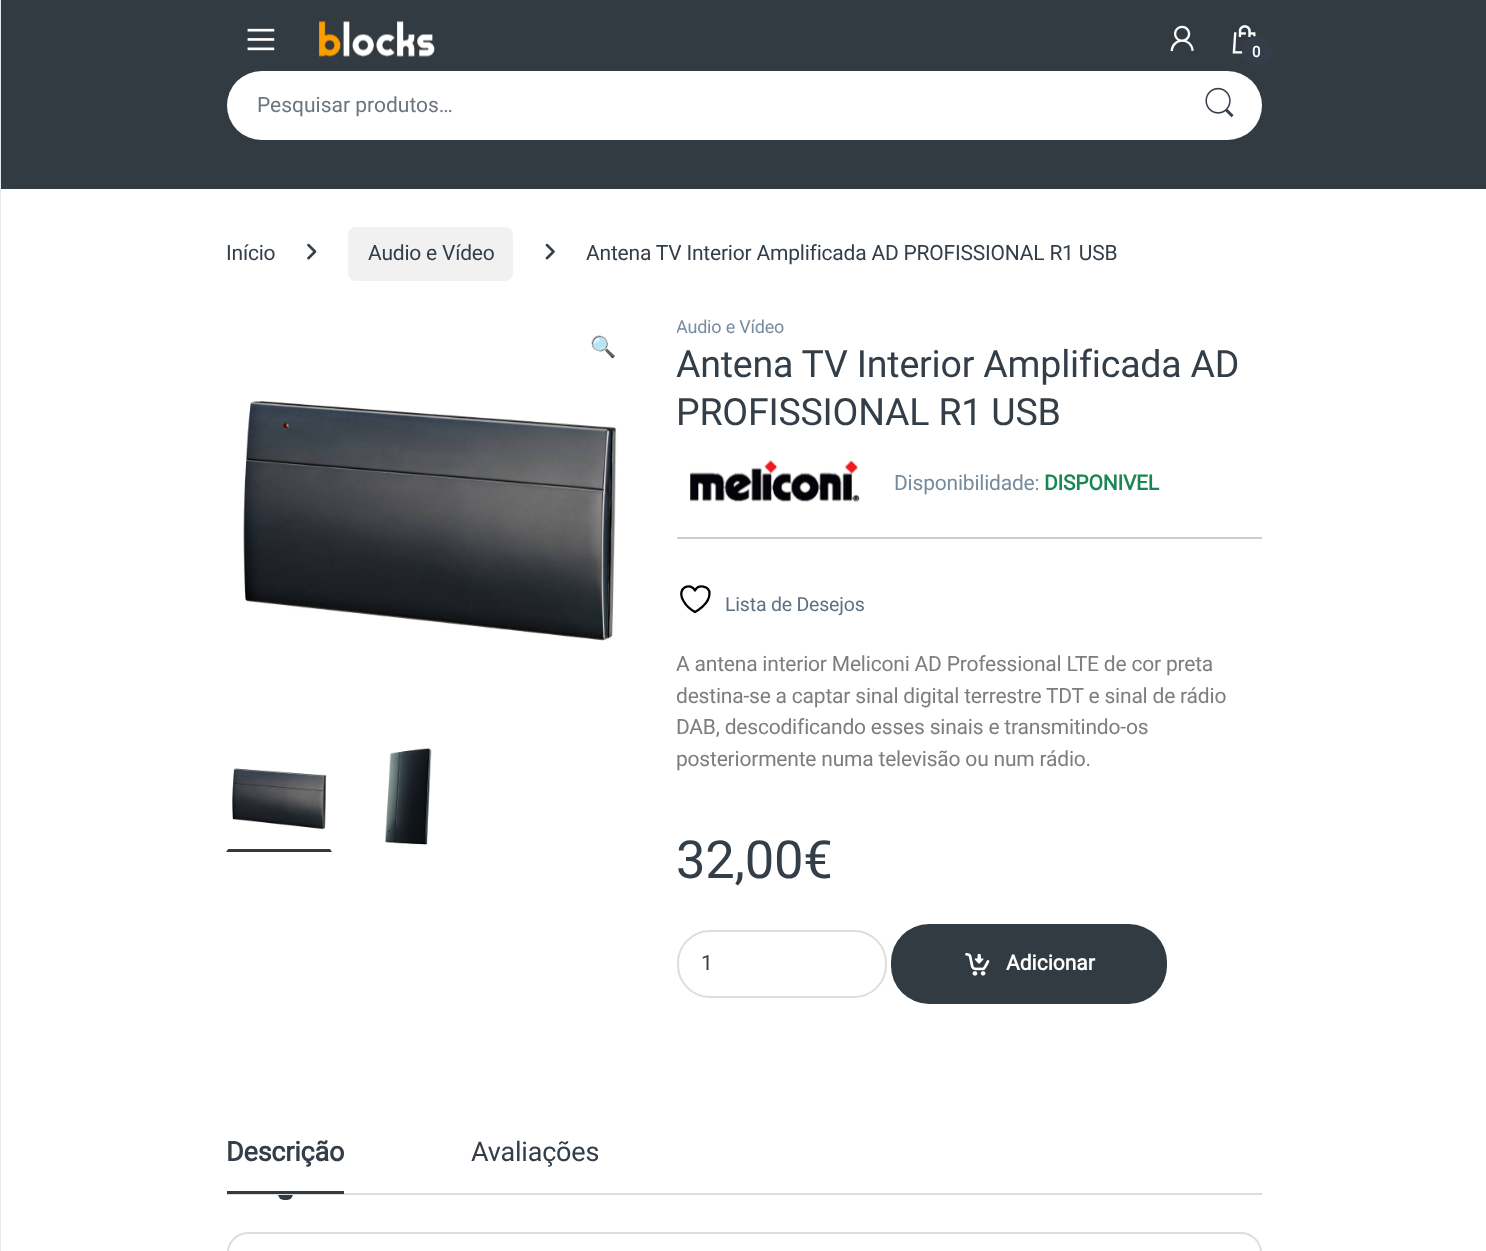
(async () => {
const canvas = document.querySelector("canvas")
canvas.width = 1486
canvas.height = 1251
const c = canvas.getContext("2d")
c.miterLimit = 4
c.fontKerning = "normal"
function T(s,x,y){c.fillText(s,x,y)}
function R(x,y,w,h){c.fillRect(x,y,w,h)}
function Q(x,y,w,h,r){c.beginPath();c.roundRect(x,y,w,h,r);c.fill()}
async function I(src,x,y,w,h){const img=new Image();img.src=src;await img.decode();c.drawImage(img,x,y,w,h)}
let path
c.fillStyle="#fff"
R(0,0,1486,1251)
c.fillStyle="#323b42"
R(1,0,1485,189)
c.fillStyle="#e3e9ef"
R(0,0,1,1251)
await I("1.png",247,28,28,23)
await I("2.png",319,21,116,36)
await I("3.png",1170,25,24,27)
await I("4.png",1232,25,24,29)
c.fillStyle="#333e48"
c.beginPath()
c.arc(1257,51,15,0,7)
c.fill()
c.letterSpacing="-0.2px"
c.font="bold 15px Roboto"
c.fillStyle="#fff"
T("0",1252,57)
Q(227,71,1035,69,34.5)
c.letterSpacing="0px"
c.font="21px Roboto"
c.fillStyle="#6c757d"
T("Pesquisar produtos…",257,112)
await I("5.png",1205,87,29,31)
c.letterSpacing="-0.2px"
c.fillStyle="#333e48"
T("Início",226,260)
await I("6.png",307,243,10,17)
c.fillStyle="#f1f1f1"
Q(348,227,165,54,8)
c.fillStyle="#333e48"
T("Audio e Vídeo",368,260)
await I("7.png",545,243,10,17)
T("Antena TV Interior Amplificada AD PROFISSIONAL R1 USB",586,260)
c.font="21px Noto Color Emoji"
T("🔍",590,354)
await I("8.png",243,401,374,240)
c.fillStyle="#323b42"
path = new Path2D("M332 852h-106l2-3h102z")
c.fill(path)
c.save()
c.beginPath()
c.rect(227,738,405,122)
c.clip()
c.fillStyle="#fff"
path = new Path2D("M226 852v-106l2 1v102z")
c.fill(path)
c.restore()
await I("9.png",232,768,95,62)
await I("10.png",385,748,47,97)
c.save()
c.beginPath()
c.rect(677,315,585,26)
c.clip()
c.font="18px Roboto"
c.fillStyle="#768b9e"
T("Audio e Vídeo",676,333)
c.restore()
c.font="37.5px Roboto"
c.fillStyle="#333e48"
T("Antena TV Interior Amplificada AD",676,377)
T("PROFISSIONAL R1 USB",676,425)
await I("11.png",690,459,170,44)
c.font="21px Roboto"
c.fillStyle="#768b9e"
T("Disponibilidade:",894,490)
c.font="bold 21px Roboto"
c.fillStyle="#198754"
T("DISPONIVEL",1044,490)
c.fillStyle="#cccfd1"
R(677,537,585,2)
path = new Path2D("M709.5 593.5c0-8-11.5-9.5-14.5-3c-3.5-8.5-19.5-3.5-11.5 10.5c2.5 4.5 7 8.5 11.5 11c0 0 14.5-7.5 14.5-18.5z")
c.strokeStyle="#000"
c.lineWidth=2.3
c.lineCap="round"
c.lineJoin="round"
c.stroke(path)
c.font="19.5px Roboto"
c.fillStyle="#5d7184"
T("Lista de Desejos",725,611)
c.font="21px Roboto"
c.fillStyle="#7d7d7d"
T("A antena interior Meliconi AD Professional LTE de cor preta",676,671)
T("destina-se a captar sinal digital terrestre TDT e sinal de rádio",676,703)
T("DAB, descodificando esses sinais e transmitindo-os",676,734)
T("posteriormente numa televisão ou num rádio.",676,766)
c.font="52.5px Roboto"
c.fillStyle="#333e48"
T("32,00€",676,878)
c.beginPath()
c.roundRect(678,931,208,66,32)
c.strokeStyle="#ddd"
c.lineWidth=2
c.lineJoin="miter"
c.stroke()
c.letterSpacing="0px"
c.font="21px Roboto"
T("1",701,970)
c.fillStyle="#323b42"
Q(891,924,276,80,38)
await I("12.png",965,952,25,24)
c.font="bold 21px Roboto"
c.fillStyle="#fff"
T("Adicionar",1006,970)
c.letterSpacing="-0.2px"
c.font="bold 27px Roboto"
c.fillStyle="#333e48"
T("Descrição",226,1161)
c.fillStyle="#323b42"
c.beginPath()
c.roundRect(278,1194,15,6,[0,0,6,6])
c.fill()
c.fillStyle="#ddd"
R(227,1193,1035,2)
c.fillStyle="#323b42"
R(227,1191,117,3)
c.font="27px Roboto"
c.fillStyle="#333e48"
T("Avaliações",471,1161)
c.beginPath()
c.roundRect(228,1233,1033,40,20)
c.stroke()
})()
